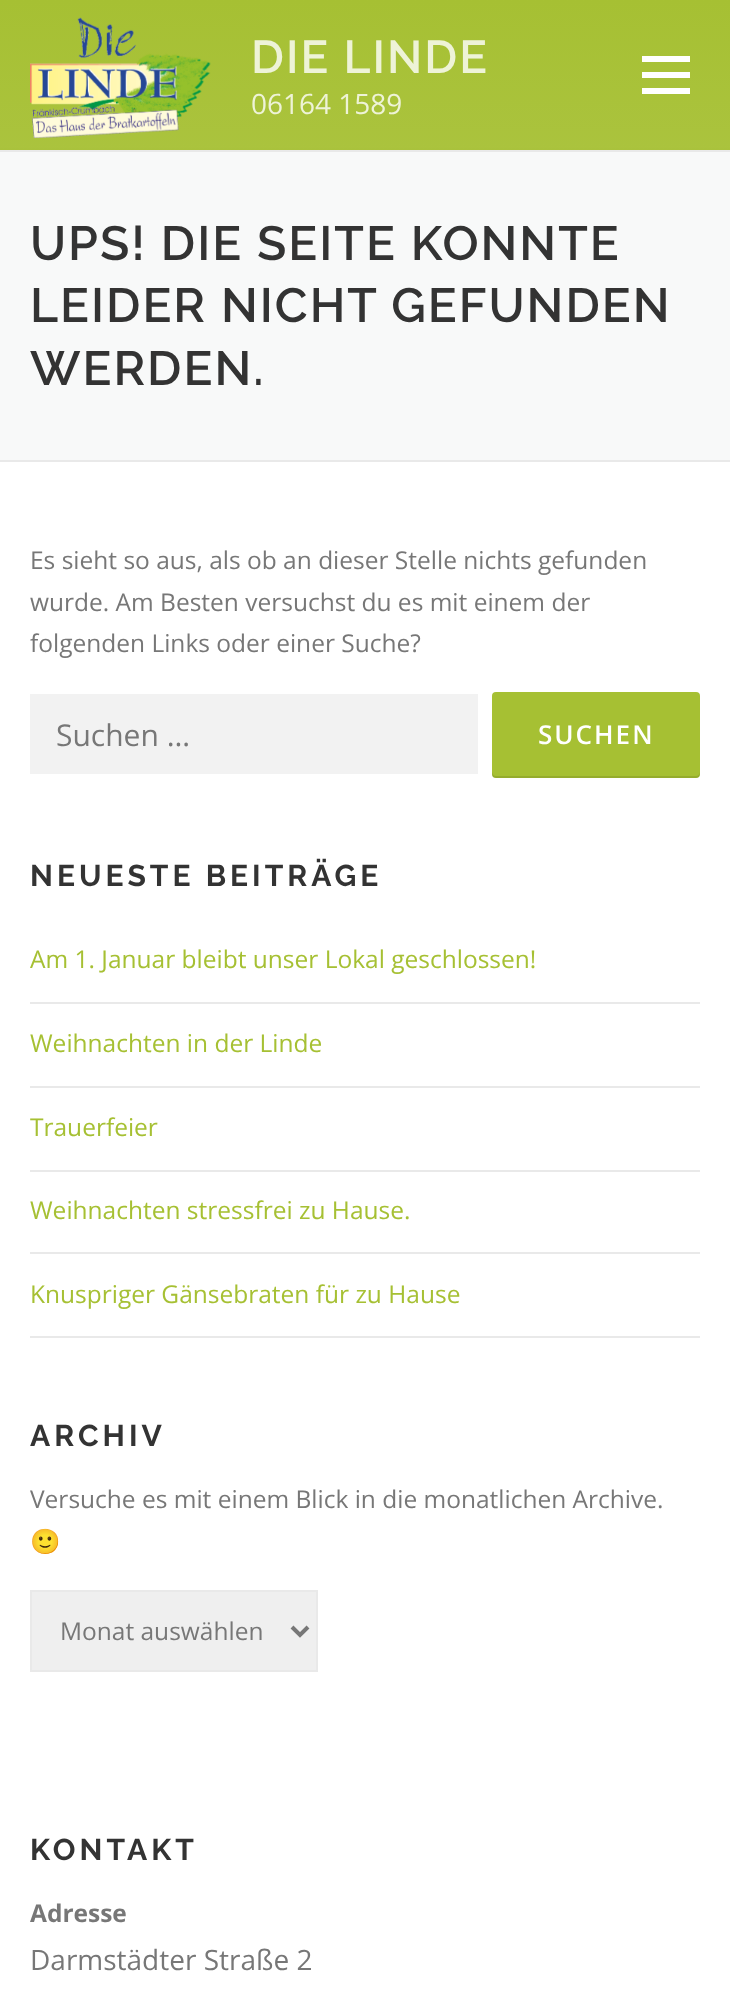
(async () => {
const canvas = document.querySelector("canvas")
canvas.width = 730
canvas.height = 1991
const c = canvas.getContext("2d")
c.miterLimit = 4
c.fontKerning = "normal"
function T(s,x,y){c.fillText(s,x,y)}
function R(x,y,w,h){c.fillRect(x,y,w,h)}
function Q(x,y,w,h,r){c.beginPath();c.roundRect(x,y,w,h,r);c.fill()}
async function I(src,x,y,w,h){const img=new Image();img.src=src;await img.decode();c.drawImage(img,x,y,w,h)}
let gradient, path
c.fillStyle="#fff"
R(0,0,730,1991)
c.fillStyle="#e9e9e9"
R(0,148,730,4)
gradient = c.createLinearGradient(365,150,365,0)
gradient.addColorStop(0,"#a6c033f2")
gradient.addColorStop(1,"#a6c033")
c.fillStyle = gradient
R(0,0,730,150)
await I("1.png",30,17,181,121)
c.letterSpacing="2px"
c.font="600 46px Raleway"
c.fillStyle="#eef3d7"
T("DIE LINDE",251,73)
c.letterSpacing="0px"
c.font="28px Open Sans"
T("06164 1589",251,114)
c.fillStyle="#fff"
R(642,72,48,6)
R(642,56,48,6)
R(642,88,48,6)
c.fillStyle="#f8f9f9"
R(0,152,730,308)
c.fillStyle="#e9e9e9"
R(0,460,730,2)
c.letterSpacing="2px"
c.font="600 48px Raleway"
c.fillStyle="#333"
T("UPS! DIE SEITE KONNTE",30,260)
T("LEIDER NICHT GEFUNDEN",30,322)
T("WERDEN.",30,385)
c.letterSpacing="0px"
c.font="24.5px Open Sans"
c.fillStyle="#777"
T("Es sieht so aus, als ob an dieser Stelle nichts gefunden",30,569)
T("wurde. Am Besten versuchst du es mit einem der",30,611)
T("folgenden Links oder einer Suche?",30,652)
c.fillStyle="#f2f2f2"
R(30,694,448,80)
c.font="30px Open Sans"
c.fillStyle="#777"
T("Suchen …",56,746)
c.fillStyle="#a6c033"
Q(492,692,208,86,4)
c.fillStyle="#0000001a"
path = new Path2D("M492 772c0 3 0 6 4 6h201c3-1 3-3 3-6c0 2-2 4-4 4h-200c-2 0-4-2-4-4z")
c.fill(path)
c.letterSpacing="2px"
c.font="600 26px Open Sans"
c.fillStyle="#fff"
T("SUCHEN",538,744)
c.letterSpacing="4px"
c.font="bold 30px Raleway"
c.fillStyle="#333"
T("NEUESTE BEITRÄGE",30,886)
c.fillStyle="#e9e9e9"
R(30,1002,670,2)
c.letterSpacing="0px"
c.font="24.5px Open Sans"
c.fillStyle="#a6c033"
T("Am 1. Januar bleibt unser Lokal geschlossen!",30,968)
c.fillStyle="#e9e9e9"
R(30,1086,670,2)
c.fillStyle="#a6c033"
T("Weihnachten in der Linde",30,1052)
c.fillStyle="#e9e9e9"
R(30,1170,670,2)
c.fillStyle="#a6c033"
T("Trauerfeier",30,1136)
c.fillStyle="#e9e9e9"
R(30,1252,670,2)
c.fillStyle="#a6c033"
T("Weihnachten stressfrei zu Hause.",30,1219)
c.fillStyle="#e9e9e9"
R(30,1336,670,2)
c.fillStyle="#a6c033"
T("Knuspriger Gänsebraten für zu Hause",30,1303)
c.letterSpacing="4px"
c.font="bold 30px Raleway"
c.fillStyle="#333"
T("ARCHIV",30,1446)
c.letterSpacing="0px"
c.font="24.5px Open Sans"
c.fillStyle="#777"
T("Versuche es mit einem Blick in die monatlichen Archive.",30,1508)
c.font="24.5px Noto Color Emoji"
T("🙂",30,1550)
c.fillStyle="#efefef"
c.beginPath()
c.rect(31,1591,286,80)
c.fill()
c.strokeStyle="#e9e9e9"
c.lineWidth=2
c.stroke()
path = new Path2D("M292 1627l8 8l8-8")
c.strokeStyle="#777"
c.lineWidth=4
c.stroke(path)
c.font="24.5px Open Sans"
c.fillStyle="#777"
T("Monat auswählen",60,1640)
c.letterSpacing="4px"
c.font="bold 30px Raleway"
c.fillStyle="#333"
T("KONTAKT",30,1860)
c.letterSpacing="0px"
c.font="bold 24.5px Open Sans"
c.fillStyle="#777"
T("Adresse",30,1922)
c.font="28px Open Sans"
T("Darmstädter Straße 2",30,1970)
})()
